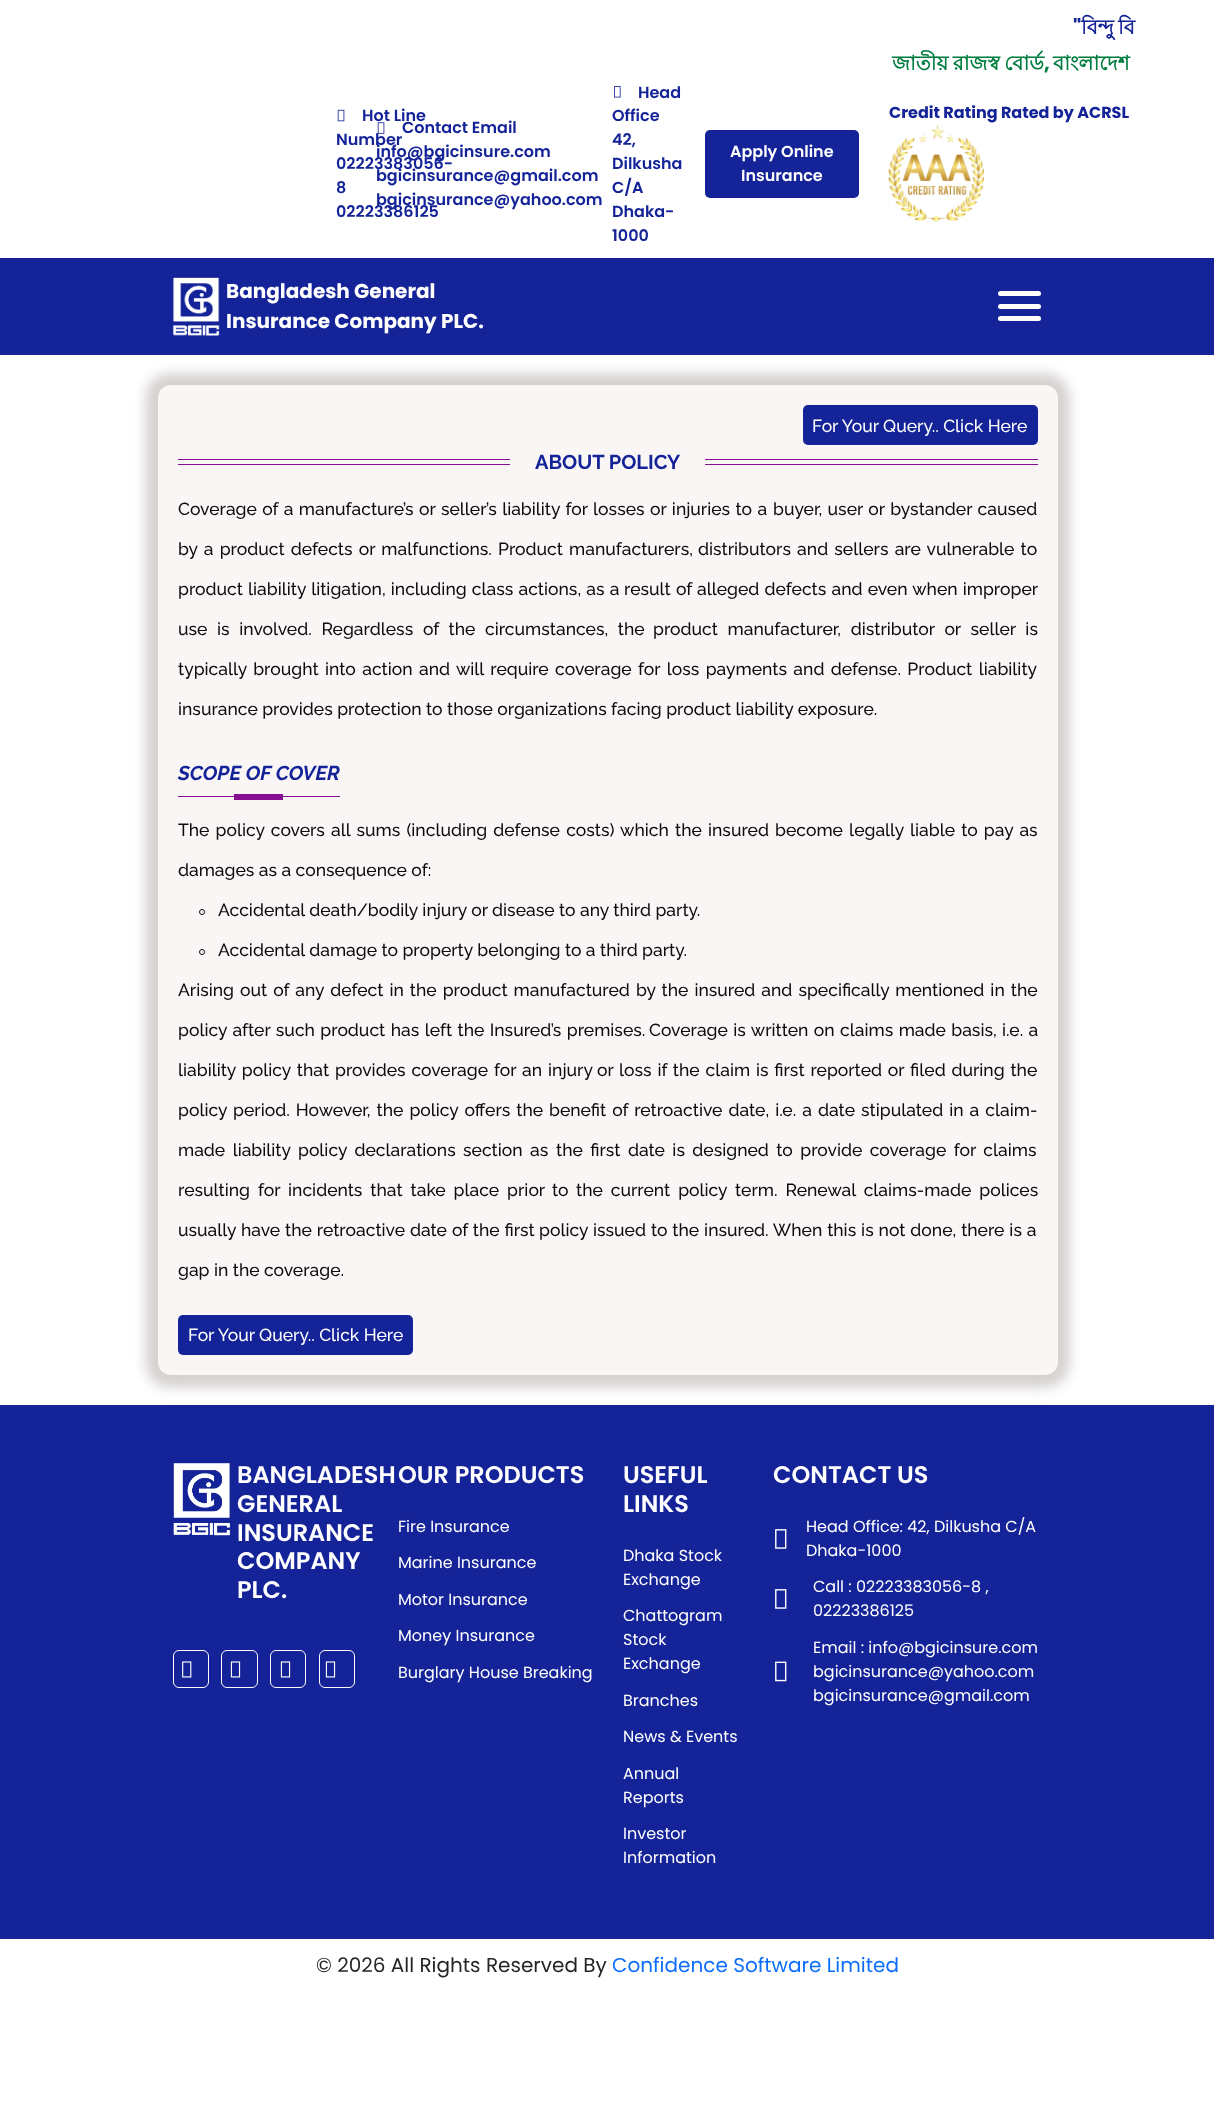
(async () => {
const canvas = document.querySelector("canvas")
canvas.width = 1214
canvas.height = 2108
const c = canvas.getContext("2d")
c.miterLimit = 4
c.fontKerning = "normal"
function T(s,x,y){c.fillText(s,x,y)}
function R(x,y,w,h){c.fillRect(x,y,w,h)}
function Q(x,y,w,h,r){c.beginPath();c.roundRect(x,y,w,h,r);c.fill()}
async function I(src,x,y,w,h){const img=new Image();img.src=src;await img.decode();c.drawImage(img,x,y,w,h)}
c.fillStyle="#fff"
R(0,0,1214,2108)
c.font="bold 20px Poppins"
c.fillStyle="#142398"
T("\"",1073,34)
c.font="bold 20px Lohit Bengali"
T("বিন্দু",1081,34)
T("বি",1118,34)
c.wordSpacing="-1px"
c.fillStyle="#007d3f"
T("জাতীয় রাজস্ব বোর্ড",892,70)
c.wordSpacing="0px"
c.font="bold 20px Poppins"
T(",",1044,70)
c.font="bold 20px Lohit Bengali"
T("বাংলাদেশ",1053,70)
await I("1.png",337,109,8,13)
c.font="600 16px Poppins"
c.fillStyle="#142398"
T("Hot Line",362,121)
T("Number",336,145)
T("02223383056-",336,169)
T("8",336,193)
T("02223386125",336,217)
await I("2.png",614,86,7,12)
T("Head",638,98)
T("Office",612,121)
T("42,",612,145)
T("Dilkusha",612,169)
T("C/A",612,193)
T("Dhaka-",612,217)
T("1000",612,241)
c.font="bold 16px Poppins"
T("Credit Rating Rated by ACRSL",889,118)
await I("3.png",888,124,97,98)
await I("4.png",377,122,8,12)
c.font="600 16px Poppins"
T("Contact Email",402,133)
T("info@bgicinsure.com",376,157)
T("bgicinsurance@gmail.com",376,181)
T("bgicinsurance@yahoo.com",376,205)
Q(705,130,154,68,5)
c.fillStyle="#fff"
T("Apply Online",730,157)
T("Insurance",741,181)
c.fillStyle="#142398"
R(0,1405,1214,534)
c.fillStyle="#8c7f7f59"
c.filter="blur(6px)"
c.beginPath()
c.roundRect(145,373,925,1015,25)
c.fill()
c.filter="none"
c.fillStyle="#142398"
R(0,258,1214,97)
await I("5.png",172,277,48,59)
c.font="bold 20px Poppins"
c.fillStyle="#fff"
T("Bangladesh General",226,298)
T("Insurance Company PLC.",226,328)
Q(998,304,43,5,2.5)
Q(998,291,43,5,2.5)
Q(998,316,43,5,2.5)
c.fillStyle="#faf6f6"
Q(158,385,900,990,13)
c.fillStyle="#142398"
Q(803,405,235,40,5)
c.font="500 17.5px Raleway"
c.fillStyle="#fff"
T("For Your Query.. Click Here",812,432)
c.fillStyle="#861091"
R(178,459,332,1)
R(178,464,332,1)
c.font="bold 20px Raleway"
c.fillStyle="#142398"
T("ABOUT POLICY",535,469)
c.fillStyle="#861091"
R(705,459,333,1)
R(705,464,333,1)
c.wordSpacing="1px"
c.font="500 17.5px Raleway"
c.fillStyle="#0c0c0c"
T("Coverage of a manufacture’s or seller’s liability for losses or injuries to a",178,515)
T("buyer, user or bystander caused",773,515)
c.wordSpacing="1.75px"
T("by a product defects or malfunctions. Product manufacturers,",178,555)
T("distributors and sellers are vulnerable to",698,555)
c.wordSpacing="0.75px"
T("product liability litigation, including class actions, as a",178,595)
T("result of alleged defects and even when improper",624,595)
c.wordSpacing="5.25px"
T("use is involved. Regardless of the circumstances, the",178,635)
T("product manufacturer, distributor or seller is",653,635)
c.wordSpacing="2px"
T("typically brought into action and will require coverage",178,675)
T("for loss payments and defense. Product liability",638,675)
c.wordSpacing="0px"
T("insurance provides protection to those organizations facing product liability exposure.",178,715)
c.font="italic bold 20px Raleway"
c.fillStyle="#142398"
T("SCOPE OF COVER",178,780)
c.fillStyle="#861091"
R(234,794,49,6)
R(178,796,162,1)
c.wordSpacing="1.75px"
c.font="500 17.5px Raleway"
c.fillStyle="#0c0c0c"
T("The policy covers all sums (including defense costs) which the insured become legally liable to pay as",178,836)
c.wordSpacing="0px"
T("damages as a consequence of:",178,876)
c.beginPath()
c.arc(202,912,2.5,0,7)
c.strokeStyle="#0c0c0c"
c.stroke()
T("Accidental death/bodily injury or disease to any third party.",218,916)
c.beginPath()
c.arc(202,952,2.5,0,7)
c.stroke()
T("Accidental damage to property belonging to a third party.",218,956)
c.wordSpacing="1.6px"
T("Arising out of any defect in the product manufactured by the insured and specifically mentioned in the",178,996)
c.wordSpacing="1px"
T("policy after such product has left the Insured’s premises.",178,1036)
T("Coverage is written on claims made basis, i.e. a",649,1036)
c.wordSpacing="1.5px"
T("liability policy that provides coverage for an injury",178,1076)
c.wordSpacing="0px"
T("or",597,1076)
c.wordSpacing="1.4px"
T("loss if the claim is first reported or filed during the",619,1076)
c.wordSpacing="1.6px"
T("policy period. However, the policy offers the",178,1116)
T("benefit of retroactive date, i.e. a date stipulated in a claim-",549,1116)
c.wordSpacing="3px"
T("made liability policy declarations",178,1156)
T("section as",463,1156)
T("the first date is designed to provide coverage for claims",556,1156)
c.wordSpacing="3.5px"
T("resulting for incidents that take place prior",178,1196)
c.wordSpacing="0px"
T("to",552,1196)
c.wordSpacing="3.5px"
T("the current policy term. Renewal claims-made polices",576,1196)
c.wordSpacing="0.5px"
T("usually have the retroactive date of the first",178,1236)
c.wordSpacing="0px"
T("policy",539,1236)
c.wordSpacing="0.5px"
T("issued to the insured. When this is not done, there is a",593,1236)
c.wordSpacing="0px"
T("gap in the coverage.",178,1276)
c.fillStyle="#142398"
Q(178,1315,235,40,5)
c.fillStyle="#fff"
T("For Your Query.. Click Here",188,1341)
await I("6.png",173,1463,57,73)
c.font="600 24px Poppins"
T("BANGLADESH",237,1483)
T("GENERAL",237,1512)
T("INSURANCE",237,1541)
T("COMPANY",237,1569)
T("PLC.",237,1598)
c.beginPath()
c.roundRect(173.5,1650.5,35,37,5.5)
c.strokeStyle="#fff"
c.stroke()
await I("7.png",182,1661,10,17)
c.beginPath()
c.roundRect(221.5,1650.5,36,37,5.5)
c.stroke()
await I("8.png",230,1661,11,17)
c.beginPath()
c.roundRect(270.5,1650.5,35,37,5.5)
c.stroke()
await I("8.png",280,1661,11,17)
c.beginPath()
c.roundRect(319.5,1650.5,35,37,5.5)
c.stroke()
await I("8.png",325,1661,11,17)
T("OUR PRODUCTS",398,1483)
c.font="16px Poppins"
T("Fire Insurance",398,1532)
T("Marine Insurance",398,1568)
T("Motor Insurance",398,1605)
T("Money Insurance",398,1641)
T("Burglary House Breaking",398,1678)
c.font="600 24px Poppins"
T("USEFUL",623,1483)
T("LINKS",623,1512)
c.font="16px Poppins"
T("Dhaka Stock",623,1561)
T("Exchange",623,1585)
T("Chattogram",623,1621)
T("Stock",623,1645)
T("Exchange",623,1669)
T("Branches",623,1706)
T("News & Events",623,1742)
T("Annual",623,1779)
T("Reports",623,1803)
T("Investor",623,1839)
T("Information",623,1863)
c.font="600 24px Poppins"
T("CONTACT US",773,1483)
await I("9.png",775,1529,12,20)
c.font="16px Poppins"
T("Head Office: 42, Dilkusha C/A",806,1532)
T("Dhaka-1000",806,1556)
await I("9.png",775,1589,12,20)
T("Call : 02223383056-8 ,",813,1592)
T("02223386125",813,1616)
await I("10.png",775,1661,12,21)
T("Email : info@bgicinsure.com",813,1653)
T("bgicinsurance@yahoo.com",813,1677)
T("bgicinsurance@gmail.com",813,1701)
c.font="20px Poppins"
c.fillStyle="#252525"
T("© 2026 All Rights Reserved By",316,1972)
c.fillStyle="#0d6efd"
T("Confidence Software Limited",612,1972)
})()
